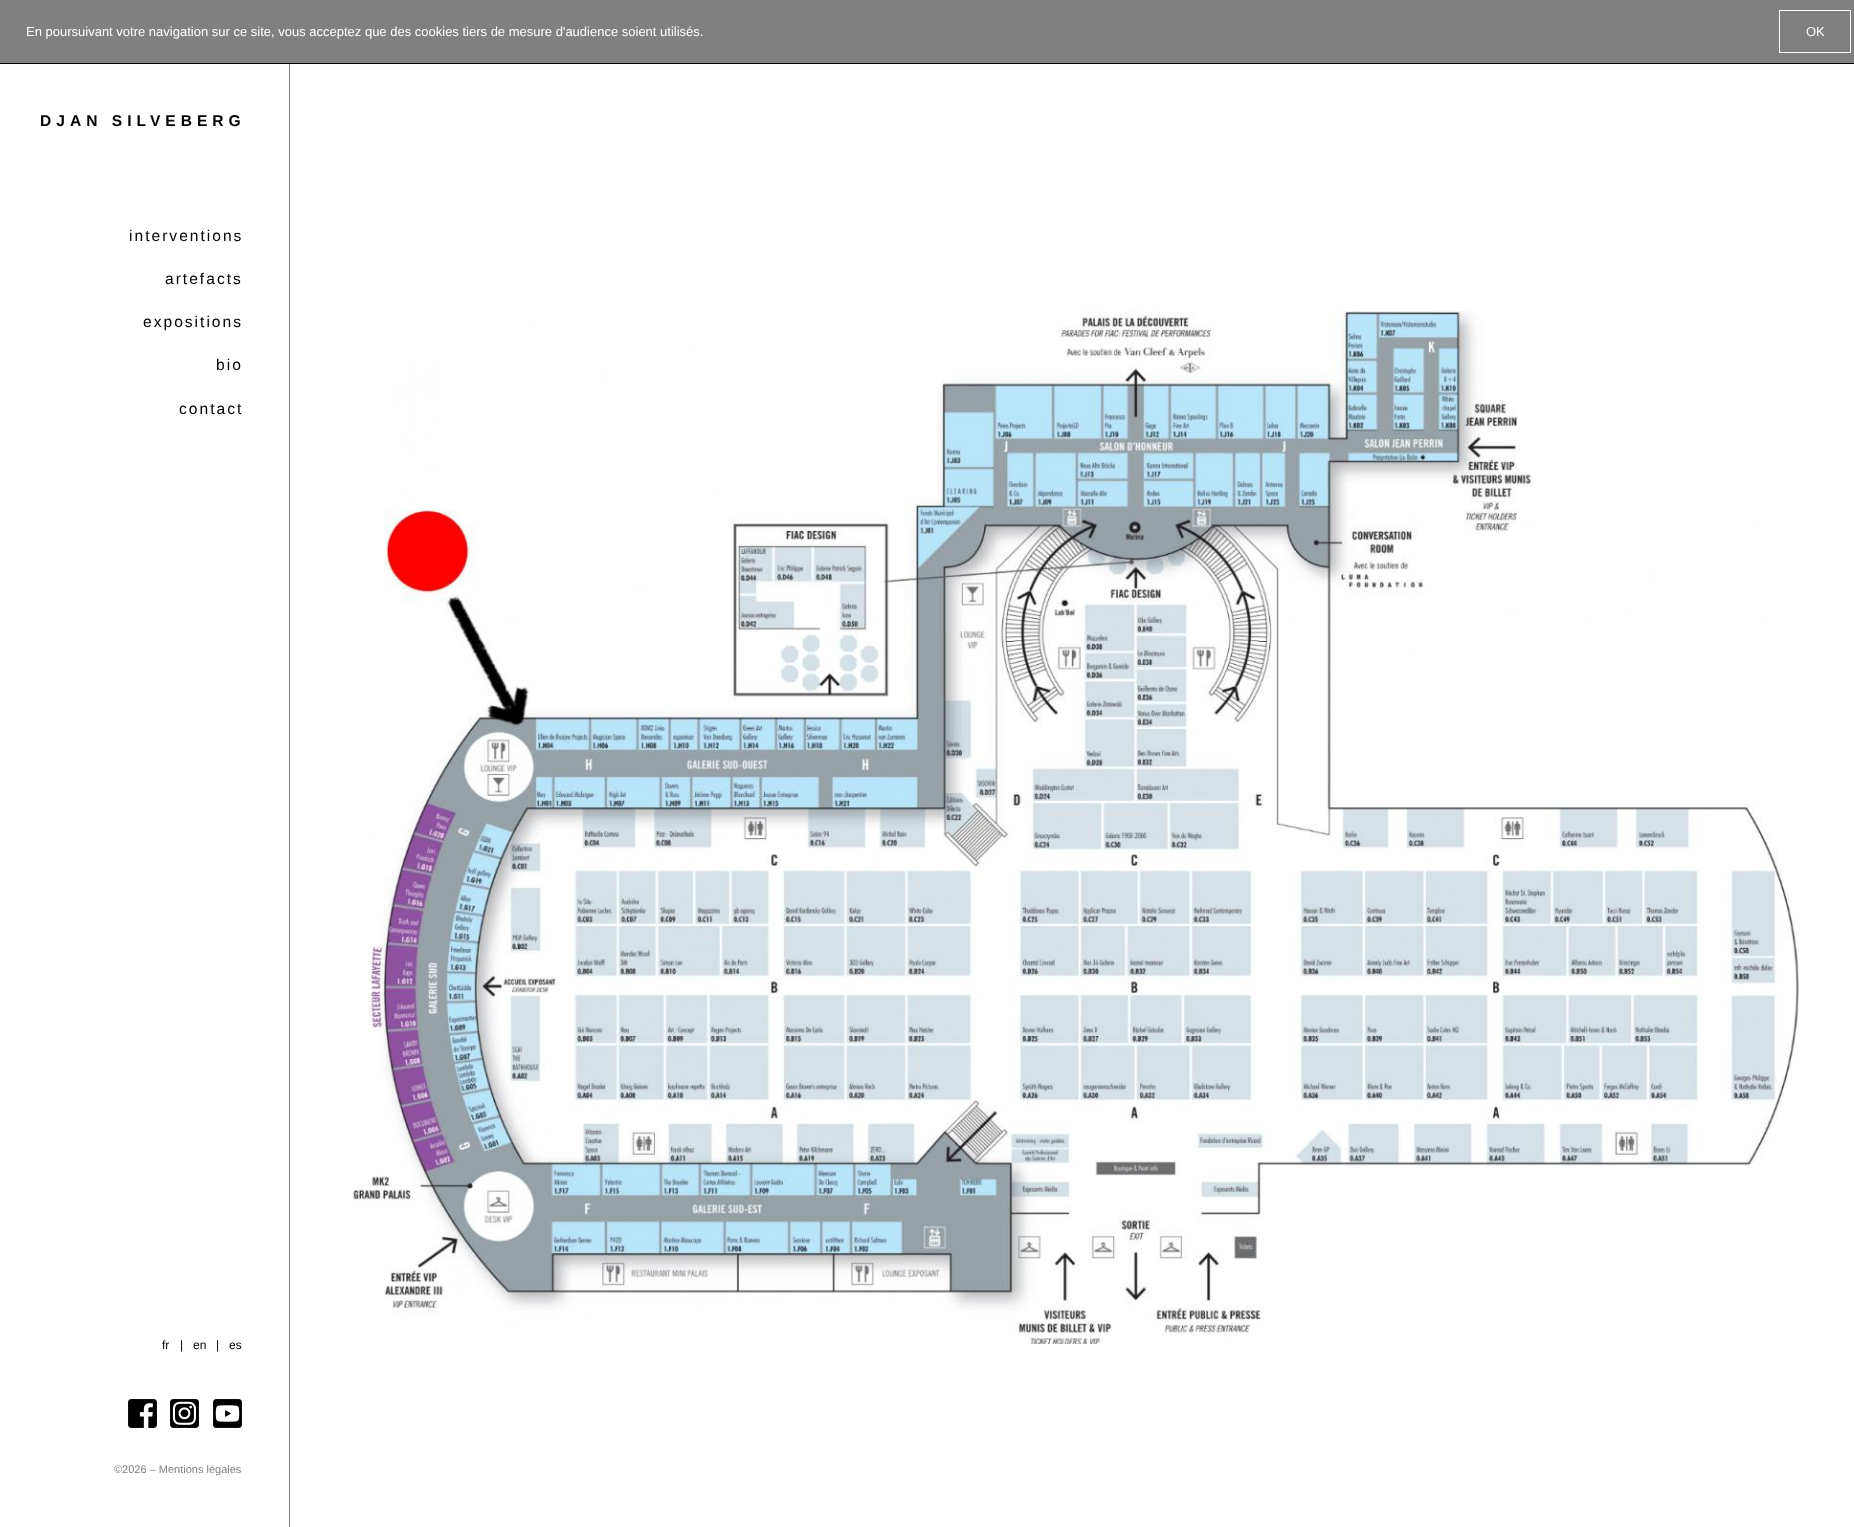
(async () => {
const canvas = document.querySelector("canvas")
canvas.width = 1854
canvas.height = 1527
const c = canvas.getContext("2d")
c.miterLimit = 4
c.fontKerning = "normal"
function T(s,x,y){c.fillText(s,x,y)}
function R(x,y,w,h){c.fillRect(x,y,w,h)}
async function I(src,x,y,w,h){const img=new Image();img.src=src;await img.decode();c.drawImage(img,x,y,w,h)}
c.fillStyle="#fff"
R(0,0,1854,1527)
c.fillStyle="#808080"
R(0,0,1854,63)
c.fillStyle="#000"
R(0,63,1854,1)
c.font="13px Liberation Sans"
c.fillStyle="#fff"
T("En poursuivant votre navigation sur ce site, vous acceptez que des cookies tiers de mesure d'audience soient utilisés.",26,36)
c.strokeStyle="#fff"
c.strokeRect(1779.5,10.5,71,42)
T("OK",1806,36)
c.fillStyle="#808080"
R(289,64,1,1463)
c.letterSpacing="5px"
c.font="bold 15.6px Liberation Sans"
c.fillStyle="#000"
T("DJAN SILVEBERG",40,126)
c.letterSpacing="2px"
c.font="15.6px Liberation Sans"
T("interventions",129,241)
T("artefacts",165,284)
T("expositions",143,327)
T("bio",216,370)
T("contact",179,414)
c.letterSpacing="0px"
c.font="12px Liberation Sans"
T("fr",162,1349)
T("|",180,1349)
T("en",193,1349)
T("|",216,1349)
T("es",229,1349)
await I("1.png",128,1399,29,29)
await I("2.png",170,1399,29,29)
await I("3.png",213,1399,29,29)
c.font="11px Liberation Sans"
c.fillStyle="#808080"
T("©2026 – Mentions légales",114,1473)
await I("4.png",353,311,1446,1033)
})()
